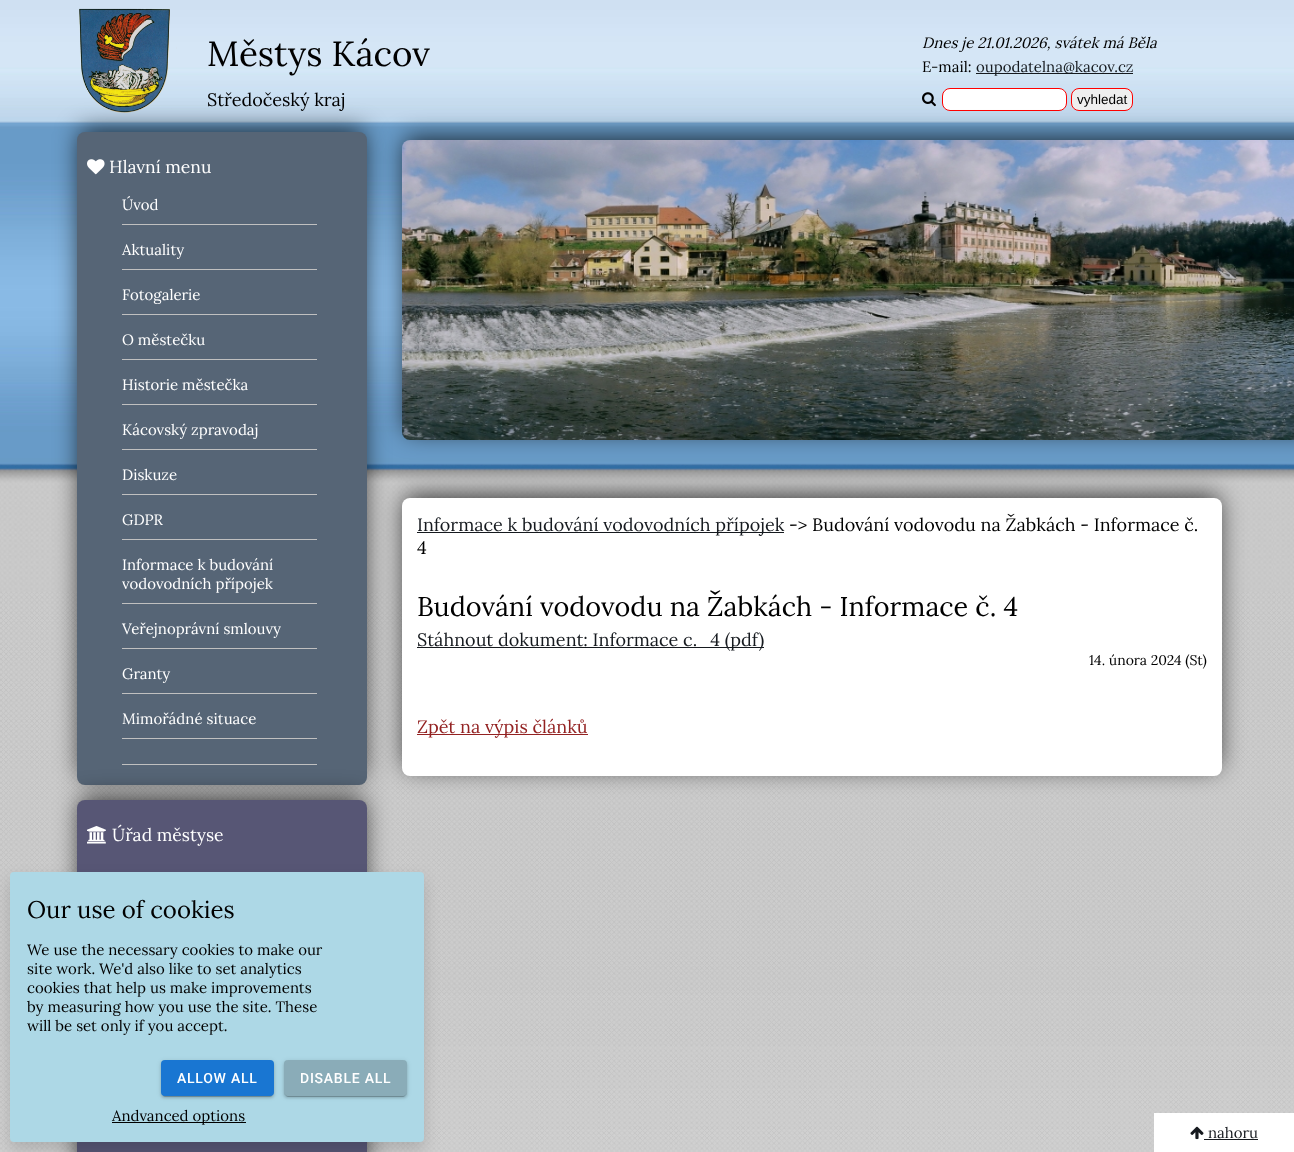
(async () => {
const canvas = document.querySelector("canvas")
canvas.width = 1294
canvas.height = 1152
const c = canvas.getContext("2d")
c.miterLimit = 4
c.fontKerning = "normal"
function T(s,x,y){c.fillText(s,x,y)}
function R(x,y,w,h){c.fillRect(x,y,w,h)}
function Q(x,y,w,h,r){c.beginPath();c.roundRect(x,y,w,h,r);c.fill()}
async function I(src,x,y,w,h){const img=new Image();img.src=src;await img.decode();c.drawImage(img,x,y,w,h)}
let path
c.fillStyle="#fff"
R(0,0,1294,1152)
await I("1.png",0,0,1294,1152)
await I("2.png",79,8,98,105)
c.font="35px Lora"
c.fillStyle="#000"
T("Městys Kácov",207,66)
c.font="18px Lora"
T("Středočeský kraj",207,106)
c.font="italic 15px Lora"
T("Dnes je 21.01.2026, svátek má Běla",922,48)
c.font="15px Lora"
T("E-mail:",922,72)
c.fillStyle="#161a1f"
R(976,73,157,1)
T("oupodatelna@kacov.cz",976,72)
await I("3.png",922,92,14,15)
c.fillStyle="#fff"
c.beginPath()
c.roundRect(942.5,88.5,124,22,7.5)
c.fill()
c.strokeStyle="#f00"
c.stroke()
c.fillStyle="#efefef"
c.beginPath()
c.roundRect(1071.5,88.5,61,22,7.5)
c.fill()
c.stroke()
c.font="13.5px Liberation Sans"
c.fillStyle="#000"
T("vyhledat",1077,104)
c.fillStyle="#000000bf"
c.filter="blur(12px)"
c.beginPath()
c.roundRect(80,130,284,647,5)
c.fill()
c.filter="none"
c.fillStyle="#566576"
Q(77,132,290,653,8)
await I("4.png",87,159,18,16)
c.font="17.5px Lora"
c.fillStyle="#fff"
T("Hlavní menu",109,173)
c.fillStyle="#c0c0c0"
R(122,224,195,1)
c.font="15px Lora"
c.fillStyle="#fff"
T("Úvod",122,210)
c.fillStyle="#c0c0c0"
R(122,269,195,1)
c.fillStyle="#fff"
T("Aktuality",122,255)
c.fillStyle="#c0c0c0"
R(122,314,195,1)
c.fillStyle="#fff"
T("Fotogalerie",122,300)
c.fillStyle="#c0c0c0"
R(122,359,195,1)
c.fillStyle="#fff"
T("O městečku",122,345)
c.fillStyle="#c0c0c0"
R(122,404,195,1)
c.fillStyle="#fff"
T("Historie městečka",122,390)
c.fillStyle="#c0c0c0"
R(122,449,195,1)
c.fillStyle="#fff"
T("Kácovský zpravodaj",122,435)
c.fillStyle="#c0c0c0"
R(122,494,195,1)
c.fillStyle="#fff"
T("Diskuze",122,480)
c.fillStyle="#c0c0c0"
R(122,539,195,1)
c.fillStyle="#fff"
T("GDPR",122,525)
c.fillStyle="#c0c0c0"
R(122,603,195,1)
c.fillStyle="#fff"
T("Informace k budování",122,570)
T("vodovodních přípojek",122,589)
c.fillStyle="#c0c0c0"
R(122,648,195,1)
c.fillStyle="#fff"
T("Veřejnoprávní smlouvy",122,634)
c.fillStyle="#c0c0c0"
R(122,693,195,1)
c.fillStyle="#fff"
T("Granty",122,679)
c.fillStyle="#c0c0c0"
R(122,738,195,1)
c.fillStyle="#fff"
T("Mimořádné situace",122,724)
c.fillStyle="#c0c0c0"
R(122,764,195,1)
c.fillStyle="#000000bf"
c.filter="blur(12px)"
c.beginPath()
c.roundRect(80,798,284,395,5)
c.fill()
c.filter="none"
c.fillStyle="#575675"
Q(77,800,290,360,8)
await I("5.png",87,826,19,18)
c.font="17.5px Lora"
c.fillStyle="#fff"
T("Úřad městyse",112,841)
c.fillStyle="#000000bf"
c.filter="blur(12px)"
c.beginPath()
c.roundRect(405,138,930,294,5)
c.fill()
c.filter="none"
await I("6.png",402,140,892,300)
c.filter="blur(12px)"
c.beginPath()
c.roundRect(405,496,814,272,5)
c.fill()
c.filter="none"
c.fillStyle="#fff"
Q(402,498,820,278,8)
c.fillStyle="#161a1f"
R(417,532,367,1)
c.font="18px Lora"
T("Informace k budování vodovodních přípojek",417,531)
c.fillStyle="#000"
T("-> Budování vodovodu na Žabkách - Informace č.",789,531)
T("4",417,554)
c.font="27px Lora"
T("Budování vodovodu na Žabkách - Informace č. 4",417,616)
c.fillStyle="#161a1f"
R(417,647,347,1)
c.font="18px Lora"
T("Stáhnout dokument: Informace c._4 (pdf)",417,646)
c.font="14px Lora"
c.fillStyle="#000"
T("14. února 2024 (St)",1089,665)
c.fillStyle="#932222"
R(417,734,171,1)
c.font="18px Lora"
T("Zpět na výpis článků",417,733)
c.fillStyle="#fff"
R(1154,1113,140,39)
await I("7.png",1190,1126,14,14)
c.font="15px Lora"
c.fillStyle="#161a1f"
T("nahoru",1208,1138)
R(1204,1139,54,1)
c.fillStyle="#00000026"
c.filter="blur(8px)"
c.beginPath()
c.roundRect(10,880,414,270,4)
c.fill()
c.filter="none"
c.fillStyle="#add8e6"
Q(10,872,414,270,4)
c.font="24px Lora"
c.fillStyle="#000"
T("Our use of cookies",27,918)
c.font="15px Lora"
T("We use the necessary cookies to make our",27,955)
T("site work. We'd also like to set analytics",27,974)
T("cookies that help us make improvements",27,993)
T("by measuring how you use the site. These",27,1012)
T("will be set only if you accept.",27,1031)
c.fillStyle="#0000001f"
c.filter="blur(2.5px)"
c.beginPath()
c.roundRect(161,1061,113,36,4)
c.fill()
c.filter="none"
c.fillStyle="#00000024"
c.filter="blur(1px)"
c.beginPath()
c.roundRect(161,1062,113,36,4)
c.fill()
c.filter="none"
c.fillStyle="#00000033"
c.filter="blur(0.5px)"
c.beginPath()
c.roundRect(163,1065,109,32,2)
c.fill()
c.filter="none"
c.fillStyle="#1976d2"
Q(161,1060,113,36,4)
c.letterSpacing="0.75px"
c.font="500 14px Roboto"
c.fillStyle="#fff"
T("ALLOW ALL",177,1083)
c.save()
path = new Path2D("M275 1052h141v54h-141zm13 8h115c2 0 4 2 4 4v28c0 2-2 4-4 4h-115c-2 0-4-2-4-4v-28c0-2 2-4 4-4z")
c.clip(path,"evenodd")
c.fillStyle="#0000001f"
c.filter="blur(2.5px)"
c.beginPath()
c.roundRect(284,1061,123,36,4)
c.fill()
c.filter="none"
c.restore()
c.save()
path = new Path2D("M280 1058h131v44h-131zm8 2h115c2 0 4 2 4 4v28c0 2-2 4-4 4h-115c-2 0-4-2-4-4v-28c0-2 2-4 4-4z")
c.clip(path,"evenodd")
c.fillStyle="#00000024"
c.filter="blur(1px)"
c.beginPath()
c.roundRect(284,1062,123,36,4)
c.fill()
c.filter="none"
c.restore()
c.save()
path = new Path2D("M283 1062h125v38h-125zm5-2h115c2 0 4 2 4 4v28c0 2-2 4-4 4h-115c-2 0-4-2-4-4v-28c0-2 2-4 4-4z")
c.clip(path,"evenodd")
c.fillStyle="#00000033"
c.filter="blur(0.5px)"
c.beginPath()
c.roundRect(286,1065,119,32,2)
c.fill()
c.filter="none"
c.restore()
c.fillStyle="#00000033"
Q(284,1060,123,36,4)
c.fillStyle="#fff"
T("DISABLE ALL",300,1083)
c.fillStyle="#000"
R(112,1122,134,1)
c.letterSpacing="0px"
c.font="15px Lora"
T("Andvanced options",112,1121)
})()
